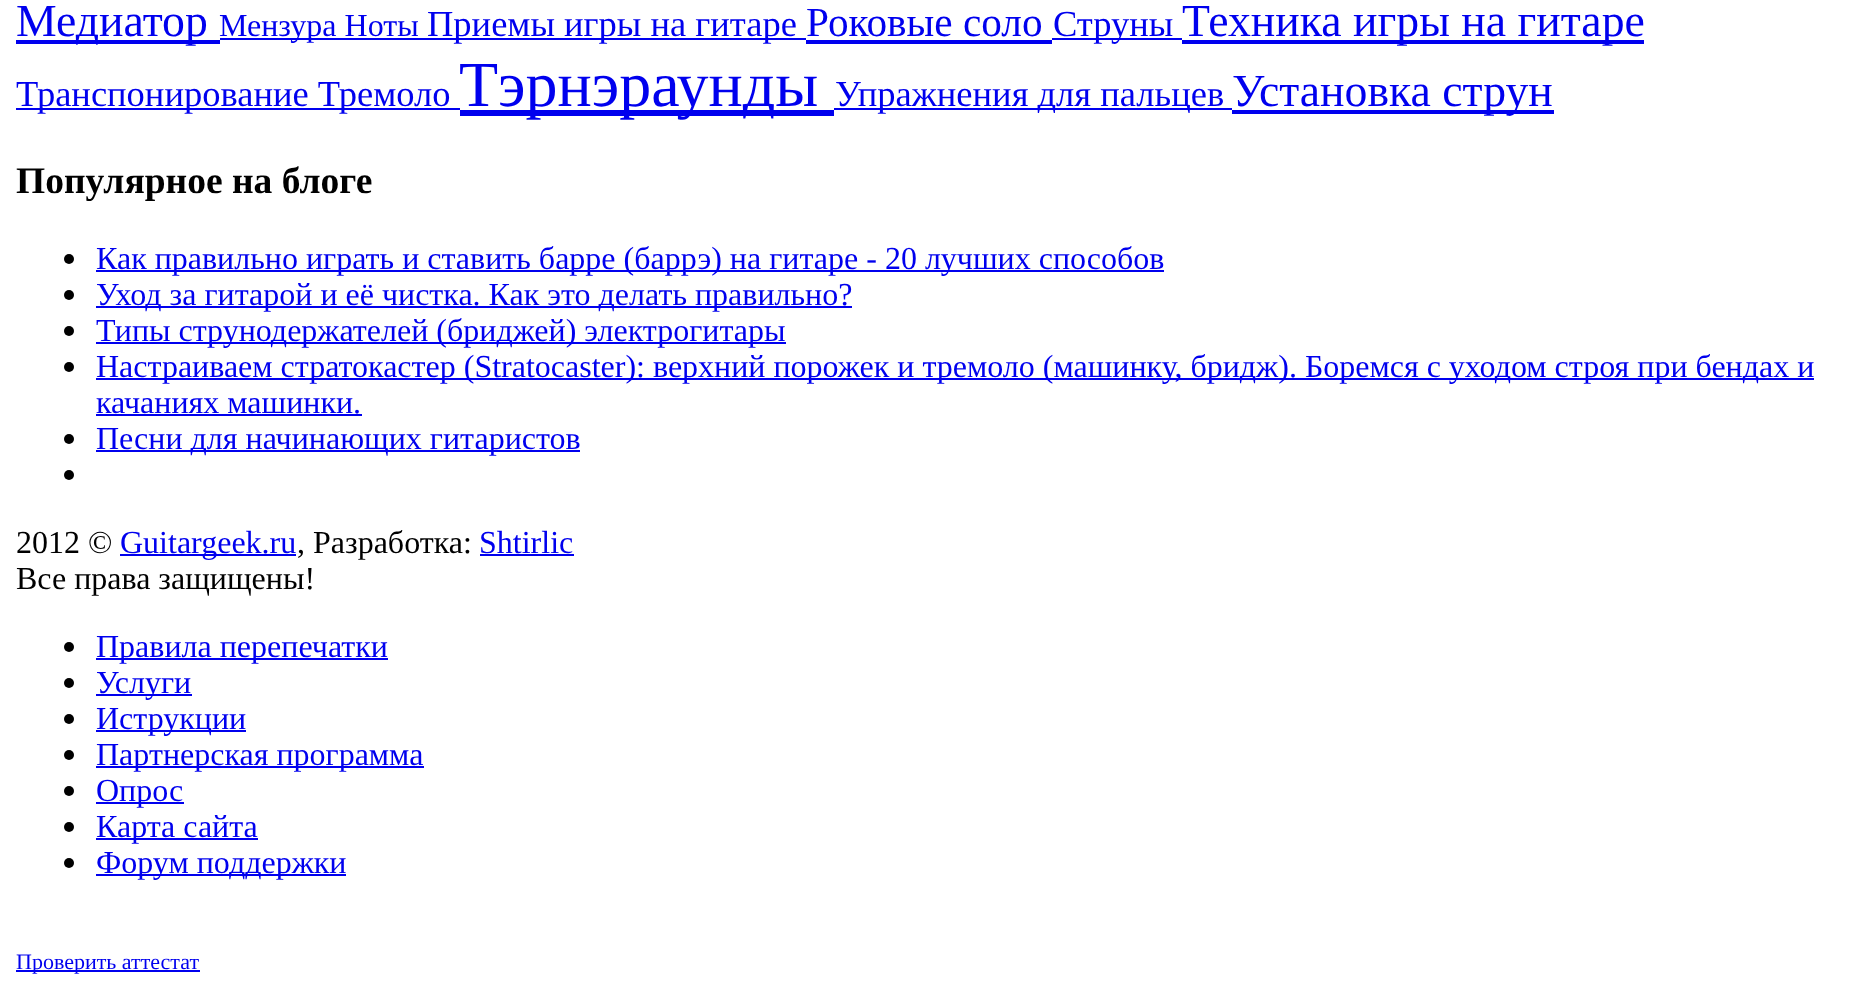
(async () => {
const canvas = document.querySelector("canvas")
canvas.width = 1853
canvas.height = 1000
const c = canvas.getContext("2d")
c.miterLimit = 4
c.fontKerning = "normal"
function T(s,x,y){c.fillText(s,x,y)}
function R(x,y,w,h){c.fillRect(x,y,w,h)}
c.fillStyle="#fff"
R(0,0,1853,1000)
c.fillStyle="#00e"
R(16,40,204,4)
c.font="45.75px Liberation Serif"
T("Медиатор",16,36)
R(220,38,586,2)
c.font="32px Liberation Serif"
T("Мензура Ноты",219,36)
c.font="36.5px Liberation Serif"
T("Приемы игры на гитаре",427,36)
c.font="41.25px Liberation Serif"
T("Роковые соло",806,36)
R(806,40,246,4)
R(1052,38,130,2)
c.font="36.5px Liberation Serif"
T("Струны",1053,36)
R(1182,40,462,4)
c.font="45.75px Liberation Serif"
T("Техника игры на гитаре",1182,36)
R(16,108,444,2)
c.font="36.5px Liberation Serif"
T("Транспонирование Тремоло",16,106)
R(460,110,374,6)
c.font="64px Liberation Serif"
T("Тэрнэраунды",459,106)
R(834,108,398,2)
c.font="36.5px Liberation Serif"
T("Упражнения для пальцев",835,106)
R(1232,110,322,4)
c.font="45.75px Liberation Serif"
T("Установка струн",1232,106)
c.font="bold 37.5px Liberation Serif"
c.fillStyle="#000"
T("Популярное на блоге",16,193)
c.beginPath()
c.arc(69,259,5,0,7)
c.fill()
c.fillStyle="#00e"
R(96,270,1068,2)
c.font="32px Liberation Serif"
T("Как правильно играть и ставить барре (баррэ) на гитаре - 20 лучших способов",96,269)
c.fillStyle="#000"
c.beginPath()
c.arc(69,295,5,0,7)
c.fill()
c.fillStyle="#00e"
R(96,306,756,2)
T("Уход за гитарой и её чистка. Как это делать правильно?",96,305)
c.fillStyle="#000"
c.beginPath()
c.arc(69,331,5,0,7)
c.fill()
c.fillStyle="#00e"
R(96,342,690,2)
T("Типы струнодержателей (бриджей) электрогитары",96,341)
c.fillStyle="#000"
c.beginPath()
c.arc(69,367,5,0,7)
c.fill()
c.fillStyle="#00e"
R(96,378,1718,2)
T("Настраиваем стратокастер (Stratocaster): верхний порожек и тремоло (машинку, бридж). Боремся с уходом строя при бендах и",96,377)
T("качаниях машинки.",96,413)
R(96,414,266,2)
c.fillStyle="#000"
c.beginPath()
c.arc(69,439,5,0,7)
c.fill()
c.fillStyle="#00e"
R(96,450,484,2)
T("Песни для начинающих гитаристов",96,449)
c.fillStyle="#000"
c.beginPath()
c.arc(69,475,5,0,7)
c.fill()
T("2012 ©",16,553)
c.fillStyle="#00e"
R(120,554,176,2)
T("Guitargeek.ru",120,553)
c.fillStyle="#000"
T(", Разработка:",297,553)
c.fillStyle="#00e"
T("Shtirlic",479,553)
R(480,554,94,2)
c.fillStyle="#000"
T("Все права защищены!",16,589)
c.beginPath()
c.arc(69,647,5,0,7)
c.fill()
c.fillStyle="#00e"
R(96,658,292,2)
T("Правила перепечатки",96,657)
c.fillStyle="#000"
c.beginPath()
c.arc(69,683,5,0,7)
c.fill()
c.fillStyle="#00e"
R(96,694,96,2)
T("Услуги",96,693)
c.fillStyle="#000"
c.beginPath()
c.arc(69,719,5,0,7)
c.fill()
c.fillStyle="#00e"
R(96,730,150,2)
T("Иструкции",96,729)
c.fillStyle="#000"
c.beginPath()
c.arc(69,755,5,0,7)
c.fill()
c.fillStyle="#00e"
R(96,766,328,2)
T("Партнерская программа",96,765)
c.fillStyle="#000"
c.beginPath()
c.arc(69,791,5,0,7)
c.fill()
c.fillStyle="#00e"
R(96,802,88,2)
T("Опрос",96,801)
c.fillStyle="#000"
c.beginPath()
c.arc(69,827,5,0,7)
c.fill()
c.fillStyle="#00e"
R(96,838,162,2)
T("Карта сайта",96,837)
c.fillStyle="#000"
c.beginPath()
c.arc(69,863,5,0,7)
c.fill()
c.fillStyle="#00e"
R(96,874,250,2)
T("Форум поддержки",96,873)
R(16,970,184,2)
c.font="22px Liberation Serif"
T("Проверить аттестат",16,969)
})()
